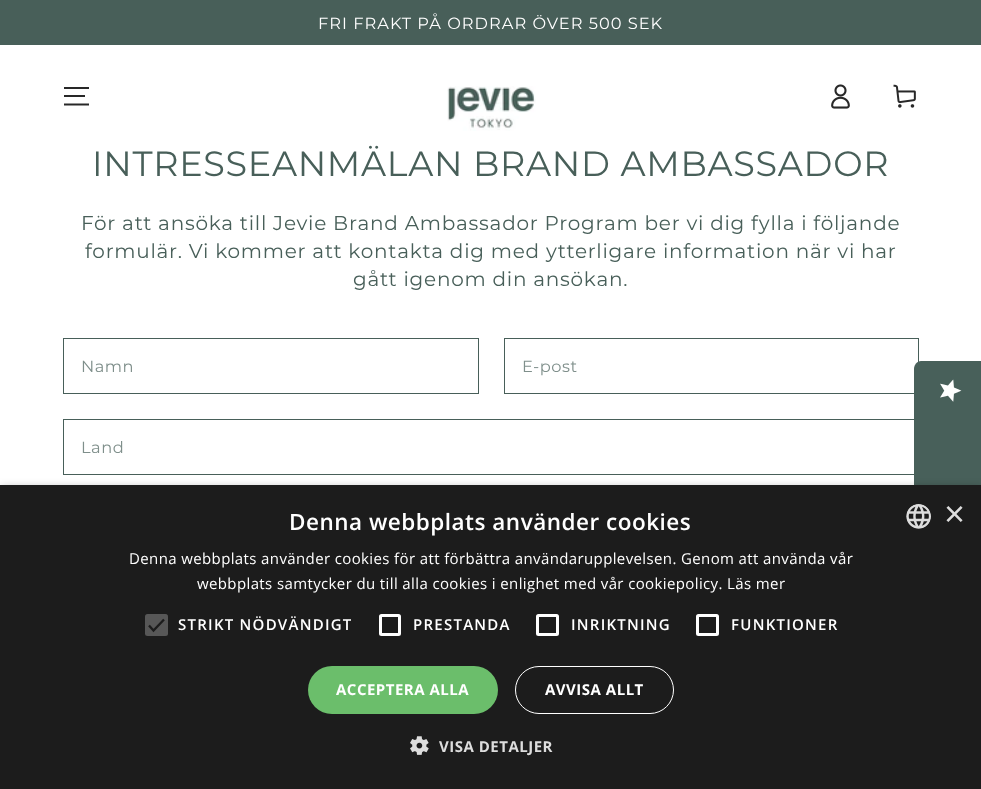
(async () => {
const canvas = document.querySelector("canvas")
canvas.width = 981
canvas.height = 789
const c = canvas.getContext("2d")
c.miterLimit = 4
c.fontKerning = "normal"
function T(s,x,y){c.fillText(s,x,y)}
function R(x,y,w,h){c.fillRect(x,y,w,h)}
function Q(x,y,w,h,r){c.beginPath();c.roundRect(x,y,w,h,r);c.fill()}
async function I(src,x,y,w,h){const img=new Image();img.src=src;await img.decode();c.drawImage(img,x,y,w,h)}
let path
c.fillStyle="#fff"
R(0,0,981,789)
c.fillStyle="#485f59"
R(0,0,981,45)
c.letterSpacing="1px"
c.font="16.25px Montserrat"
c.fillStyle="#fff"
T("FRI FRAKT PÅ ORDRAR ÖVER 500 SEK",318,29)
path = new Path2D("M64 104.5h25m-25-8.5h21m-21-8h25")
c.strokeStyle="#282828"
c.lineWidth=2
c.stroke(path)
await I("1.png",447,86,89,45)
await I("2.png",831,84,19,25)
await I("3.png",893,84,23,24)
c.letterSpacing="0.7px"
c.font="35px Montserrat"
c.fillStyle="#485f59"
T("INTRESSEANMÄLAN BRAND AMBASSADOR",92,176)
c.letterSpacing="0.75px"
c.font="20px Montserrat"
T("För att ansöka till Jevie Brand Ambassador Program ber vi dig fylla i följande",81,230)
T("formulär. Vi kommer att kontakta dig med ytterligare information när vi har",85,258)
T("gått igenom din ansökan.",353,286)
c.strokeStyle="#485f59"
c.lineWidth=1
c.strokeRect(63.5,338.5,415,55)
c.letterSpacing="0.5px"
c.font="16.25px Montserrat"
c.fillStyle="#7f8f8b"
T("Namn",81,372)
c.strokeRect(504.5,338.5,414,55)
T("E-post",522,372)
c.strokeRect(63.5,419.5,855,55)
T("Land",81,453)
c.fillStyle="#48605a"
path = new Path2D("M981 361v178h-60c-4 0-7-3-7-7v-163c0-4 3-8 7-8z")
c.fill(path)
await I("4.png",940,379,22,23)
c.fillStyle="#00000059"
c.filter="blur(5px)"
c.beginPath()
c.rect(1,488,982,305)
c.fill()
c.filter="none"
c.fillStyle="#1c1c1c"
R(0,485,981,304)
c.font="600 22.5px Open Sans"
c.fillStyle="#fff"
T("Denna webbplats använder cookies",289,530)
await I("5.png",906,504,25,25)
c.letterSpacing="0px"
c.font="36px Liberation Sans"
c.fillStyle="#ddd"
T("×",944,526)
c.letterSpacing="0.38px"
c.font="15px Open Sans"
c.fillStyle="#fff"
T("Denna webbplats använder cookies för att förbättra användarupplevelsen. Genom att använda vår",129,564)
T("webbplats samtycker du till alla cookies i enlighet med vår cookiepolicy. Läs mer",197,589)
c.fillStyle="#575757"
Q(145,614,23,22,2.5)
path = new Path2D("M149 625.5l4.5 5l10.5-11")
c.strokeStyle="#1c1c1c"
c.lineWidth=2.3
c.stroke(path)
c.letterSpacing="1.25px"
c.font="600 15px Open Sans"
c.fillStyle="#fff"
T("STRIKT NÖDVÄNDIGT",178,630)
c.beginPath()
c.roundRect(380.5,615.5,19,19,1)
c.strokeStyle="#fff"
c.lineWidth=3
c.stroke()
T("PRESTANDA",413,630)
c.beginPath()
c.roundRect(537.5,615.5,20,19,1)
c.stroke()
T("INRIKTNING",571,630)
c.beginPath()
c.roundRect(697.5,615.5,20,19,1)
c.stroke()
T("FUNKTIONER",731,630)
c.fillStyle="#6bbe6b"
Q(308,666,190,48,24)
c.letterSpacing="0.5px"
c.font="bold 15px Open Sans"
c.fillStyle="#fff"
T("ACCEPTERA ALLA",336,695)
c.beginPath()
c.roundRect(515.5,666.5,158,47,23.5)
c.lineWidth=1
c.stroke()
T("AVVISA ALLT",545,695)
await I("6.png",410,736,19,19)
c.fillStyle="#ddd"
T("VISA DETALJER",439,752)
})()
